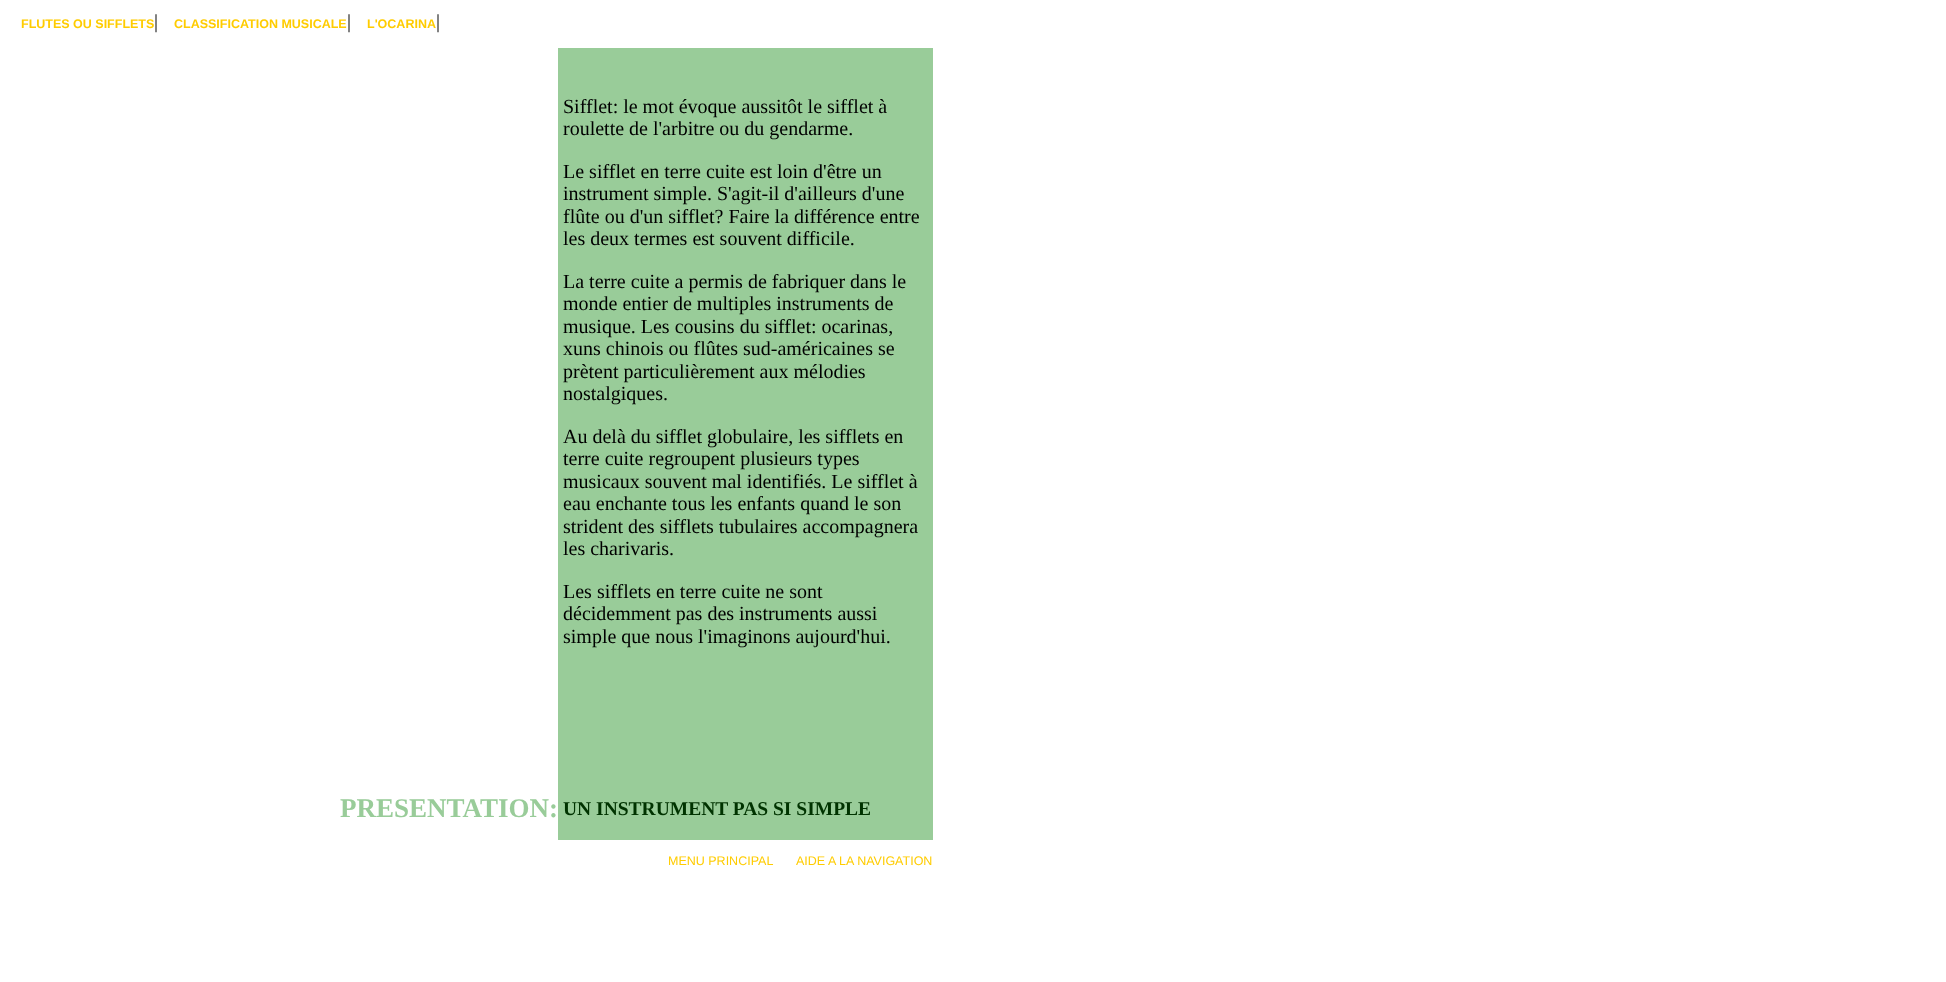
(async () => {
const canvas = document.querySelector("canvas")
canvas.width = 1946
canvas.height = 982
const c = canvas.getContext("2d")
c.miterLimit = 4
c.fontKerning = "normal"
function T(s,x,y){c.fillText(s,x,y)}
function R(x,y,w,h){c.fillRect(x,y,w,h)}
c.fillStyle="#fff"
R(0,0,1946,982)
c.font="bold 12.5px Liberation Sans"
c.fillStyle="#fc0"
T("FLUTES OU SIFFLETS",21,28)
c.font="20px Liberation Serif"
c.fillStyle="#000"
T("|",154,28)
c.font="bold 12.5px Liberation Sans"
c.fillStyle="#fc0"
T("CLASSIFICATION MUSICALE",174,28)
c.font="20px Liberation Serif"
c.fillStyle="#000"
T("|",347,28)
c.font="bold 12.5px Liberation Sans"
c.fillStyle="#fc0"
T("L'OCARINA",367,28)
c.font="20px Liberation Serif"
c.fillStyle="#000"
T("|",436,28)
c.fillStyle="#9c9"
R(558,48,375,792)
c.fillStyle="#000"
T("Sifflet: le mot évoque aussitôt le sifflet à",563,113)
T("roulette de l'arbitre ou du gendarme.",563,135)
T("Le sifflet en terre cuite est loin d'être un",563,178)
T("instrument simple. S'agit-il d'ailleurs d'une",563,200)
T("flûte ou d'un sifflet? Faire la différence entre",563,223)
T("les deux termes est souvent difficile.",563,245)
T("La terre cuite a permis de fabriquer dans le",563,288)
T("monde entier de multiples instruments de",563,310)
T("musique. Les cousins du sifflet: ocarinas,",563,333)
T("xuns chinois ou flûtes sud-américaines se",563,355)
T("prètent particulièrement aux mélodies",563,378)
T("nostalgiques.",563,400)
T("Au delà du sifflet globulaire, les sifflets en",563,443)
T("terre cuite regroupent plusieurs types",563,465)
T("musicaux souvent mal identifiés. Le sifflet à",563,488)
T("eau enchante tous les enfants quand le son",563,510)
T("strident des sifflets tubulaires accompagnera",563,533)
T("les charivaris.",563,555)
T("Les sifflets en terre cuite ne sont",563,598)
T("décidemment pas des instruments aussi",563,620)
T("simple que nous l'imaginons aujourd'hui.",563,643)
c.font="bold 27px Liberation Serif"
c.fillStyle="#9c9"
T("PRESENTATION:",340,817)
c.font="bold 19.5px Liberation Serif"
c.fillStyle="#030"
T("UN INSTRUMENT PAS SI SIMPLE",563,815)
c.font="12.5px Liberation Sans"
c.fillStyle="#fc0"
T("MENU PRINCIPAL",668,865)
T("AIDE A LA NAVIGATION",796,865)
})()
